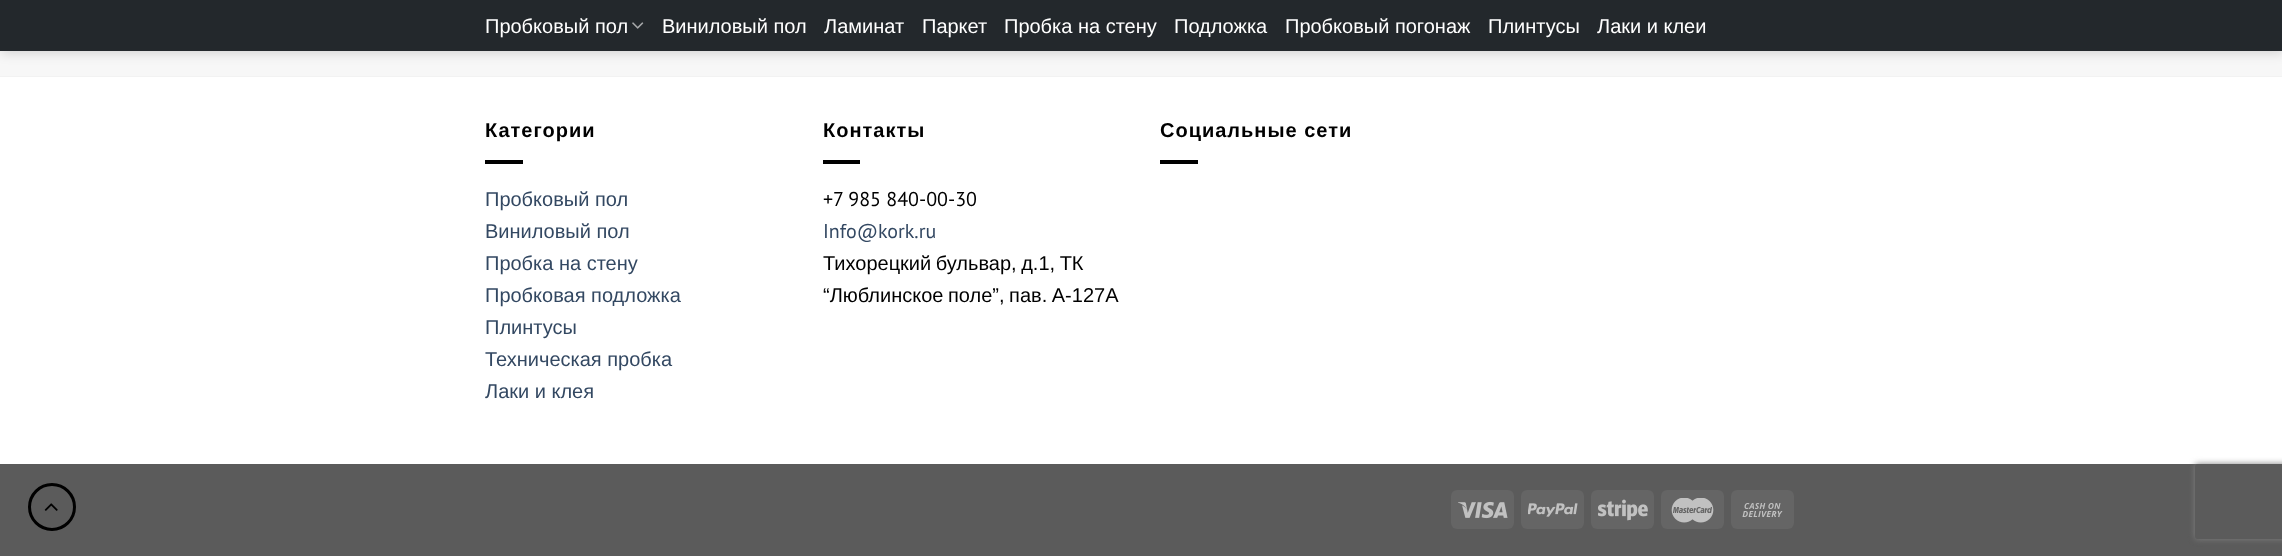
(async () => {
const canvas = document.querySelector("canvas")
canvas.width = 2282
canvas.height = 556
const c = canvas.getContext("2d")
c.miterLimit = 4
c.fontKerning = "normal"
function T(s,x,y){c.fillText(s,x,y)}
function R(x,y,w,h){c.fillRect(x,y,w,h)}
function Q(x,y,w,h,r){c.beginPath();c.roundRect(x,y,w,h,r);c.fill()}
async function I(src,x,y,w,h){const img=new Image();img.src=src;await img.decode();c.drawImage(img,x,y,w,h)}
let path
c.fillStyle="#f7f7f7"
R(0,0,2282,556)
c.fillStyle="#00000026"
c.filter="blur(6px)"
c.beginPath()
c.rect(1,1,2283,52)
c.fill()
c.filter="none"
c.fillStyle="#23282c"
R(0,0,2282,51)
c.font="20px Liberation Sans"
c.fillStyle="#fff"
T("Пробковый пол",485,33)
await I("1.png",632,22,12,7)
T("Виниловый пол",662,33)
T("Ламинат",824,33)
T("Паркет",922,33)
T("Пробка на стену",1004,33)
T("Подложка",1174,33)
T("Пробковый погонаж",1285,33)
T("Плинтусы",1488,33)
T("Лаки и клеи",1597,33)
R(0,77,2282,387)
c.fillStyle="#f2f2f2"
R(0,76,2282,1)
c.letterSpacing="1px"
c.font="bold 20px Liberation Sans"
c.fillStyle="#000"
T("Категории",485,137)
R(485,160,38,4)
c.letterSpacing="0px"
c.font="20px Liberation Sans"
c.fillStyle="#334862"
T("Пробковый пол",485,206)
T("Виниловый пол",485,238)
T("Пробка на стену",485,270)
T("Пробковая подложка",485,302)
T("Плинтусы",485,334)
T("Техническая пробка",485,366)
T("Лаки и клея",485,398)
c.letterSpacing="1px"
c.font="bold 20px Liberation Sans"
c.fillStyle="#000"
T("Контакты",823,137)
R(823,160,37,4)
c.letterSpacing="0px"
c.font="20px PT Sans"
T("+7 985 840-00-30",823,206)
c.fillStyle="#334862"
T("Info@kork.ru",823,238)
c.wordSpacing="-1px"
c.font="20px Liberation Sans"
c.fillStyle="#000"
T("Тихорецкий бульвар, д.1, ТК",823,270)
T("“Люблинское поле”, пав. А-127А",823,302)
c.letterSpacing="1px"
c.wordSpacing="0px"
c.font="bold 20px Liberation Sans"
T("Социальные сети",1160,137)
R(1160,160,38,4)
c.fillStyle="#5b5b5b"
R(0,464,2282,92)
c.fillStyle="#656565"
Q(1451,490,63,39,6)
await I("2.png",1458,501,50,18)
Q(1521,490,63,39,6)
await I("3.png",1528,503,50,14)
Q(1591,490,63,39,6)
await I("4.png",1598,499,50,22)
Q(1661,490,63,39,6)
await I("5.png",1671,498,43,25)
Q(1731,490,63,39,6)
await I("6.png",1742,503,41,14)
c.beginPath()
c.arc(52,507,22.5,0,7)
c.strokeStyle="#000"
c.lineWidth=3
c.stroke()
await I("7.png",44,503,14,8)
c.save()
path = new Path2D("M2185 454h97v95h-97zm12.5 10h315c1.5 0 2.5 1 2.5 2.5v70c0 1.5-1 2.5-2.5 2.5h-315c-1.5 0-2.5-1-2.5-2.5v-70c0-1.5 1-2.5 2.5-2.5z")
c.clip(path,"evenodd")
c.fillStyle="#808080"
c.filter="blur(3px)"
c.beginPath()
c.roundRect(2195,464,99,75,2.5)
c.fill()
c.filter="none"
c.restore()
})()
